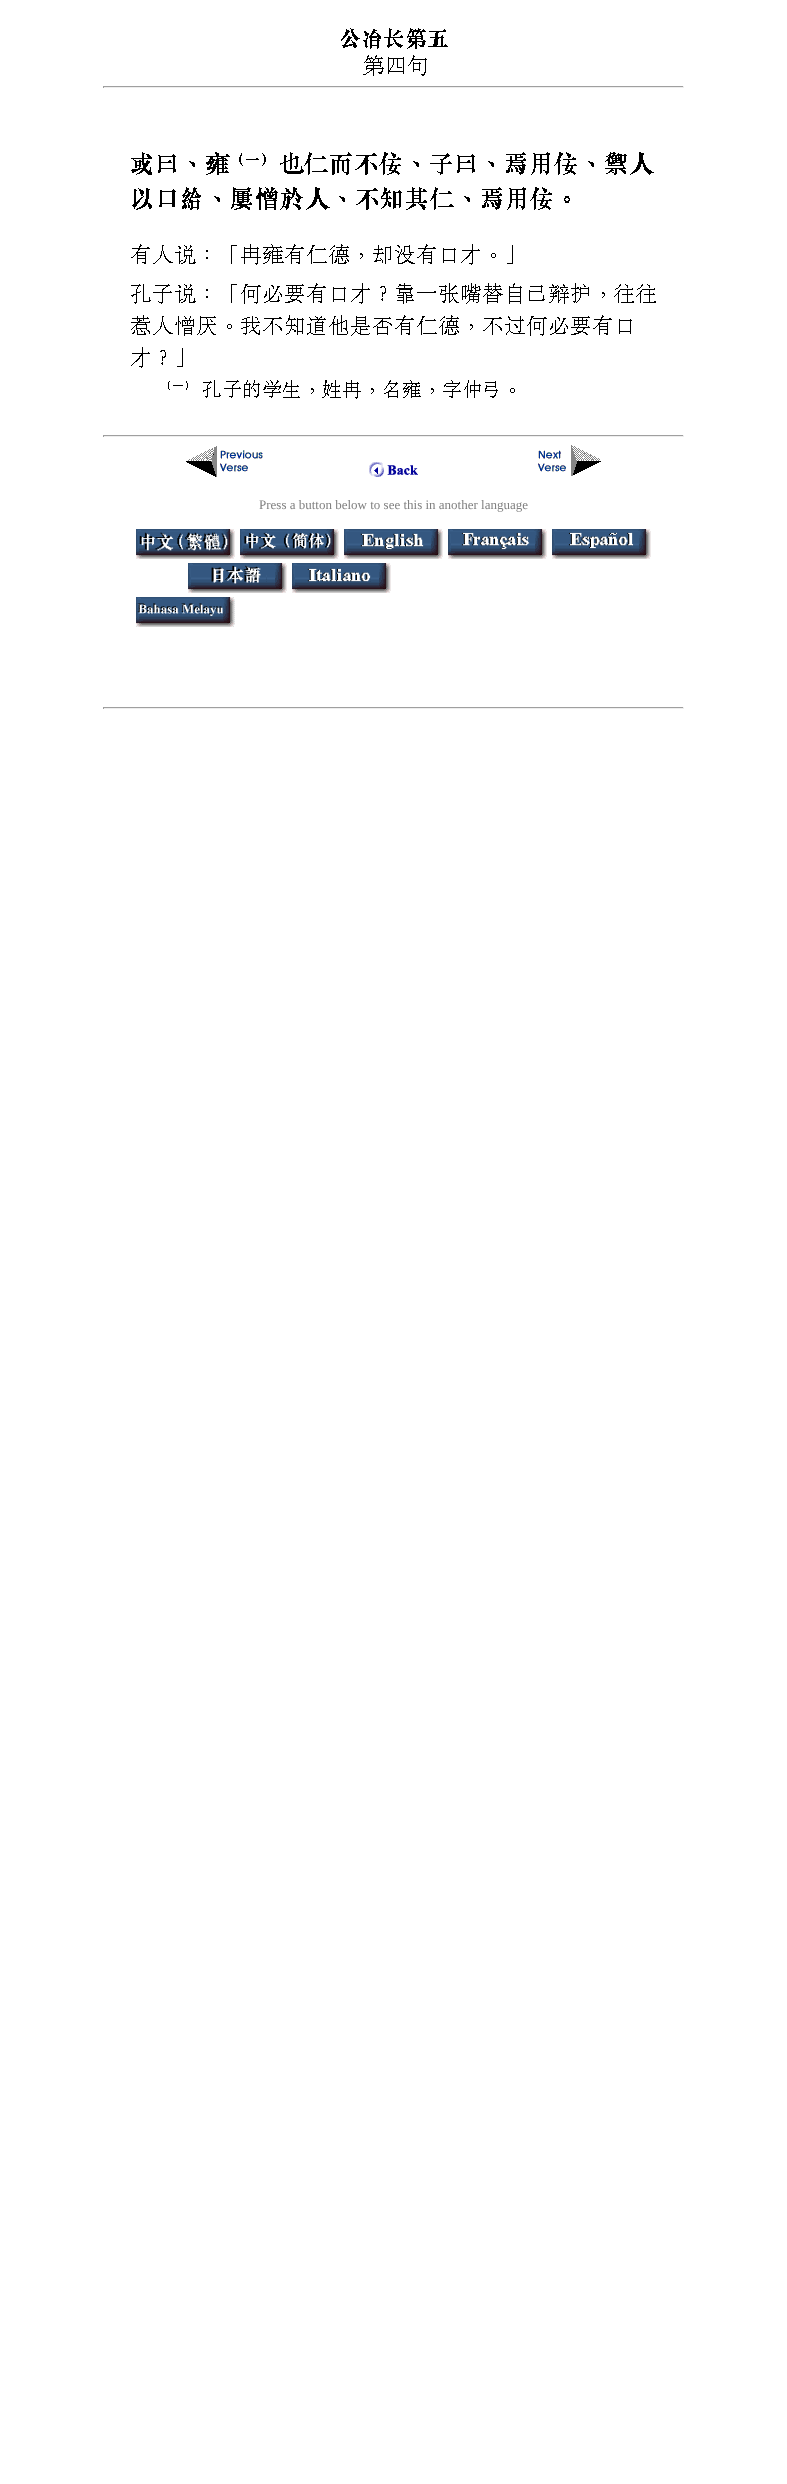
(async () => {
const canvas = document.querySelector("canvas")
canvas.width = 787
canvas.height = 2484
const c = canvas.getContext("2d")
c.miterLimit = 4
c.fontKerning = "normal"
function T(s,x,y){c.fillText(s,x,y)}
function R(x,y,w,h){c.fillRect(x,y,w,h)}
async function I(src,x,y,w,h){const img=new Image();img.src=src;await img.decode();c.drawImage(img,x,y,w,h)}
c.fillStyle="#fff"
R(0,0,787,2484)
await I("1.png",341,28,107,21)
await I("2.png",363,55,64,21)
c.fillStyle="#9f9f9f"
R(103,86,581,1)
c.fillStyle="#eee"
R(683,86,1,2)
R(103,87,581,1)
c.fillStyle="#9f9f9f"
R(103,86,1,2)
await I("3.png",131,152,525,247)
R(103,435,581,1)
c.fillStyle="#eee"
R(683,435,1,2)
R(103,436,581,1)
c.fillStyle="#9f9f9f"
R(103,435,1,2)
await I("4.png",186,446,77,31)
await I("5.png",369,462,49,15)
await I("6.png",538,445,63,31)
c.font="13px Liberation Serif"
c.fillStyle="#808080"
T("Press a button below to see this in another language",259,509)
await I("7.png",136,529,99,30)
await I("8.png",240,529,99,30)
await I("9.png",344,529,99,30)
await I("10.png",448,529,99,30)
await I("11.png",552,529,99,30)
await I("12.png",188,563,99,30)
await I("13.png",292,563,99,30)
await I("14.png",136,597,99,30)
c.fillStyle="#9f9f9f"
R(103,707,581,1)
c.fillStyle="#eee"
R(683,707,1,2)
R(103,708,581,1)
c.fillStyle="#9f9f9f"
R(103,707,1,2)
})()
